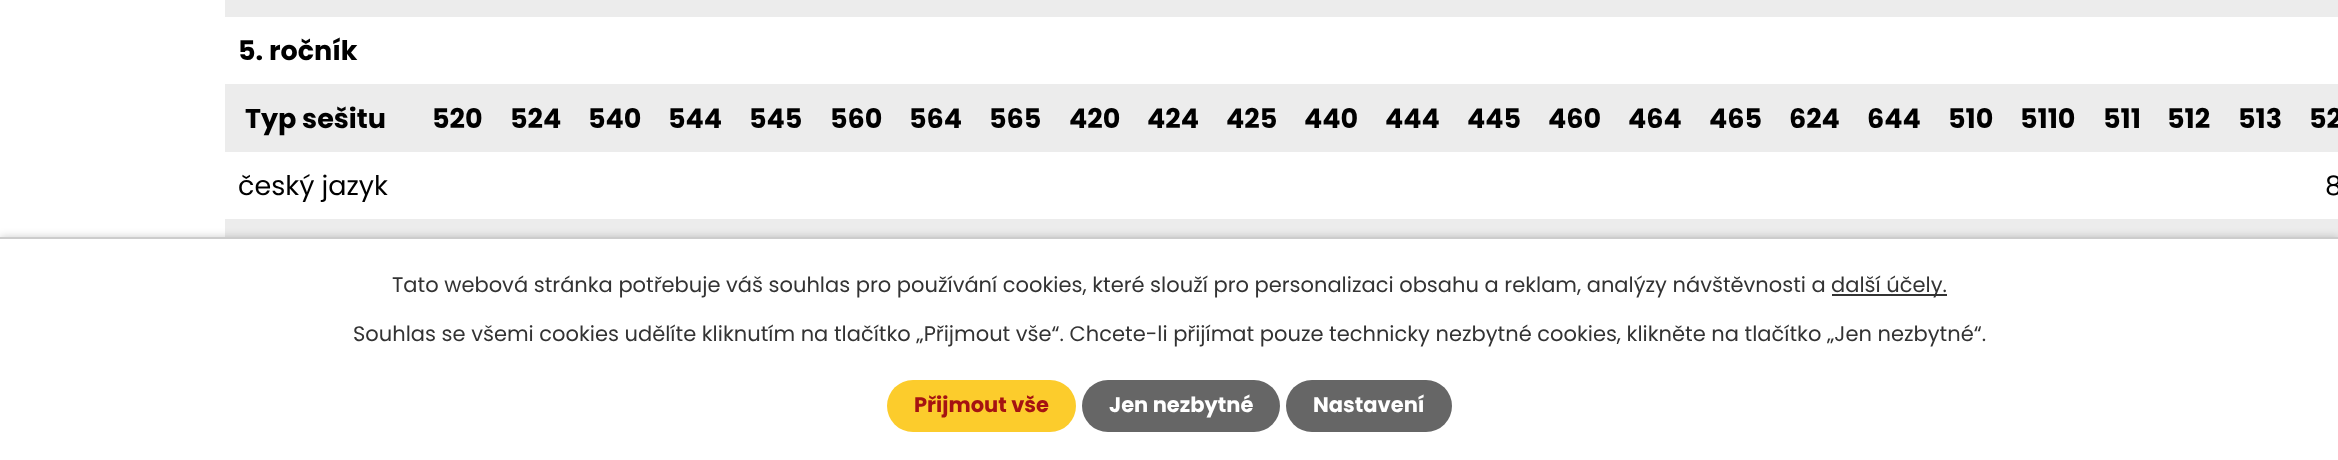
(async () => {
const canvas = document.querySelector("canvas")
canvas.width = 2338
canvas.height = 460
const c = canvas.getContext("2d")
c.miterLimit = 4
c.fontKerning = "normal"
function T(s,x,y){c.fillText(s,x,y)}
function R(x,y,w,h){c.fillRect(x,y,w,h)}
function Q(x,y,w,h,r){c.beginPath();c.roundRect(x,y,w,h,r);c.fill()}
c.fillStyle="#fff"
R(0,0,2338,460)
c.fillStyle="#ececec"
R(225,0,2113,17)
c.font="bold 27px Poppins"
c.fillStyle="#000"
T("5. ročník",238,60)
c.fillStyle="#ececec"
R(225,84,2113,68)
c.fillStyle="#000"
T("Typ sešitu",245,128)
T("520",432,128)
T("524",510,128)
T("540",588,128)
T("544",668,128)
T("545",749,128)
T("560",830,128)
T("564",909,128)
T("565",989,128)
T("420",1069,128)
T("424",1147,128)
T("425",1226,128)
T("440",1304,128)
T("444",1385,128)
T("445",1467,128)
T("460",1548,128)
T("464",1628,128)
T("465",1709,128)
T("624",1789,128)
T("644",1867,128)
T("510",1948,128)
T("5110",2020,128)
T("511",2103,128)
T("512",2167,128)
T("513",2238,128)
T("52",2309,128)
c.font="27px Poppins"
T("český jazyk",238,195)
T("8",2325,195)
c.fillStyle="#ececec"
R(225,219,2113,18)
c.fillStyle="#00000033"
c.filter="blur(4px)"
c.beginPath()
c.rect(0,237,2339,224)
c.fill()
c.filter="none"
c.fillStyle="#fff"
R(0,239,2338,221)
c.fillStyle="#ccc"
R(0,237,2338,2)
c.font="21px Poppins"
c.fillStyle="#333"
T("Tato webová stránka potřebuje váš souhlas pro používání cookies, které slouží pro personalizaci obsahu a reklam, analýzy návštěvnosti a",392,292)
R(1832,294,115,2)
T("další účely.",1831,292)
T("Souhlas se všemi cookies udělíte kliknutím na tlačítko „Přijmout vše“. Chcete-li přijímat pouze technicky nezbytné cookies, klikněte na tlačítko „Jen nezbytné“.",353,341)
c.fillStyle="#fccc2c"
Q(887,380,189,52,26)
c.font="bold 21px Poppins"
c.fillStyle="#a51312"
T("Přijmout vše",914,412)
c.fillStyle="#666"
Q(1082,380,198,52,26)
c.fillStyle="#fff"
T("Jen nezbytné",1109,412)
c.fillStyle="#666"
Q(1286,380,166,52,26)
c.fillStyle="#fff"
T("Nastavení",1313,412)
})()
